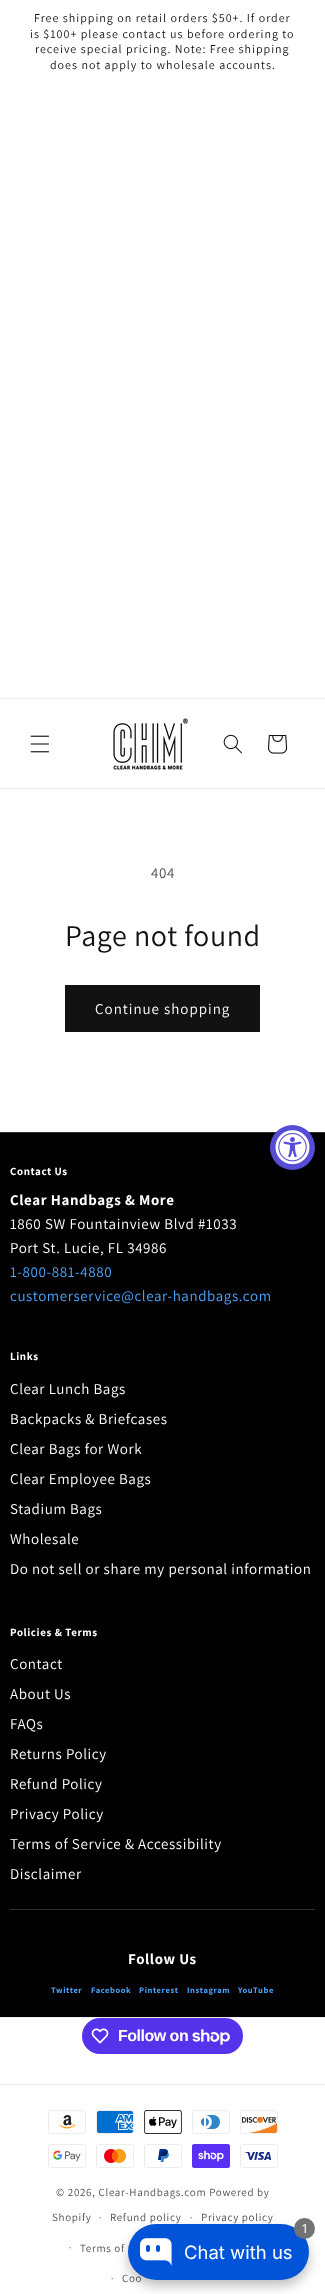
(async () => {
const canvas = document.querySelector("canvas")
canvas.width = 325
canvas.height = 2294
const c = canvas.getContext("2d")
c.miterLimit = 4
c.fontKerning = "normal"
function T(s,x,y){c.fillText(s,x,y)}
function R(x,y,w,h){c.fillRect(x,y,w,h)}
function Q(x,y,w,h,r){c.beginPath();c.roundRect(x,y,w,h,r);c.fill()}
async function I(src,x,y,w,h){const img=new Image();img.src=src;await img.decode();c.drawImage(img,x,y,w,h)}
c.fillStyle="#fff"
R(0,0,325,2294)
c.fillStyle="#ececec"
R(0,698,325,1)
c.letterSpacing="1px"
c.font="12px Assistant"
c.fillStyle="#121212"
T("Free shipping on retail orders $50+. If order",34,22)
T("is $100+ please contact us before ordering to",30,38)
T("receive special pricing. Note: Free shipping",35,53)
T("does not apply to wholesale accounts.",50,69)
c.fillStyle="#ececec"
R(0,788,325,1)
await I("1.png",30,735,20,18)
await I("2.png",113,718,76,52)
await I("3.png",223,734,19,20)
await I("4.png",268,735,20,19)
c.letterSpacing="0.6px"
c.font="15px Assistant"
c.fillStyle="#4d4d4d"
T("404",151,878)
c.font="30px Assistant"
c.fillStyle="#121212"
T("Page not found",65,946)
R(65,985,195,47)
c.letterSpacing="1px"
c.font="15px Assistant"
c.fillStyle="#fff"
T("Continue shopping",95,1014)
c.fillStyle="#000"
R(0,1133,325,884)
c.fillStyle="#333"
R(0,1132,325,1)
c.fillStyle="#574cd5"
c.beginPath()
c.arc(292.5,1147.5,22.5,0,7)
c.fill()
await I("5.png",275,1130,35,35)
c.letterSpacing="0.6px"
c.font="bold 11px Assistant"
c.fillStyle="#fff"
T("Contact Us",10,1175)
c.font="bold 15px Assistant"
T("Clear Handbags & More",10,1205)
c.font="15px Assistant"
T("1860 SW Fountainview Blvd #1033",10,1229)
T("Port St. Lucie, FL 34986",10,1253)
c.fillStyle="#4da6ff"
T("1-800-881-4880",10,1277)
T("customerservice@clear-handbags.com",10,1301)
c.font="bold 11px Assistant"
c.fillStyle="#fff"
T("Links",10,1360)
c.font="15px Assistant"
T("Clear Lunch Bags",10,1394)
T("Backpacks & Briefcases",10,1424)
T("Clear Bags for Work",10,1454)
T("Clear Employee Bags",10,1484)
T("Stadium Bags",10,1514)
T("Wholesale",10,1544)
T("Do not sell or share my personal information",10,1574)
c.font="bold 11px Assistant"
T("Policies & Terms",10,1636)
c.font="15px Assistant"
T("Contact",10,1669)
T("About Us",10,1699)
T("FAQs",10,1729)
T("Returns Policy",10,1759)
T("Refund Policy",10,1789)
T("Privacy Policy",10,1819)
T("Terms of Service & Accessibility",10,1849)
T("Disclaimer",10,1879)
c.fillStyle="#333"
R(10,1909,305,1)
c.font="bold 15px Assistant"
c.fillStyle="#fff"
T("Follow Us",128,1964)
c.font="bold 8.5px Assistant"
c.fillStyle="#4da6ff"
T("Twitter",51,1993)
T("Facebook",91,1993)
T("Pinterest",139,1993)
T("Instagram",187,1993)
T("YouTube",238,1993)
c.fillStyle="#ececec"
R(0,2017,325,1)
c.fillStyle="#5433eb"
Q(82,2018,161,36,18)
await I("6.png",91,2028,18,16)
c.letterSpacing="-0.5px"
c.font="bold 16px Liberation Sans"
c.fillStyle="#fff"
T("Follow on",118,2041)
await I("7.png",192,2029,38,16)
c.fillStyle="#ececec"
R(0,2084,325,1)
await I("8.png",48,2110,38,24)
await I("9.png",96,2110,38,24)
await I("10.png",144,2110,38,24)
await I("11.png",192,2110,38,24)
await I("12.png",240,2110,38,24)
await I("13.png",48,2144,38,24)
await I("14.png",96,2144,38,24)
await I("15.png",144,2144,38,24)
await I("16.png",192,2144,38,24)
await I("17.png",240,2144,38,24)
c.letterSpacing="0.7px"
c.font="11px Assistant"
c.fillStyle="#4d4d4d"
T("© 2026, Clear-Handbags.com Powered by",56,2196)
T("Shopify",52,2221)
c.font="10px Assistant"
T("·",99,2221)
c.font="11px Assistant"
T("Refund policy",110,2221)
c.font="10px Assistant"
T("·",190,2221)
c.font="11px Assistant"
T("Privacy policy",201,2221)
c.font="10px Assistant"
T("·",69,2251)
c.font="11px Assistant"
T("Terms of",80,2252)
c.font="10px Assistant"
T("·",111,2282)
c.font="11px Assistant"
T("Coo",122,2282)
c.fillStyle="#00000040"
c.filter="blur(6px)"
c.beginPath()
c.roundRect(128,2230,181,56,28)
c.fill()
c.filter="none"
c.fillStyle="#0154d7"
Q(128,2224,181,56,28)
c.fillStyle="#737373"
c.beginPath()
c.arc(304.5,2228.5,10.5,0,7)
c.fill()
c.letterSpacing="0.6px"
c.font="12px Inter"
c.fillStyle="#fff"
T("1",302,2233)
await I("18.png",140,2238,32,28)
c.letterSpacing="0px"
c.font="18.5px Inter"
T("Chat with us",184,2259)
})()
